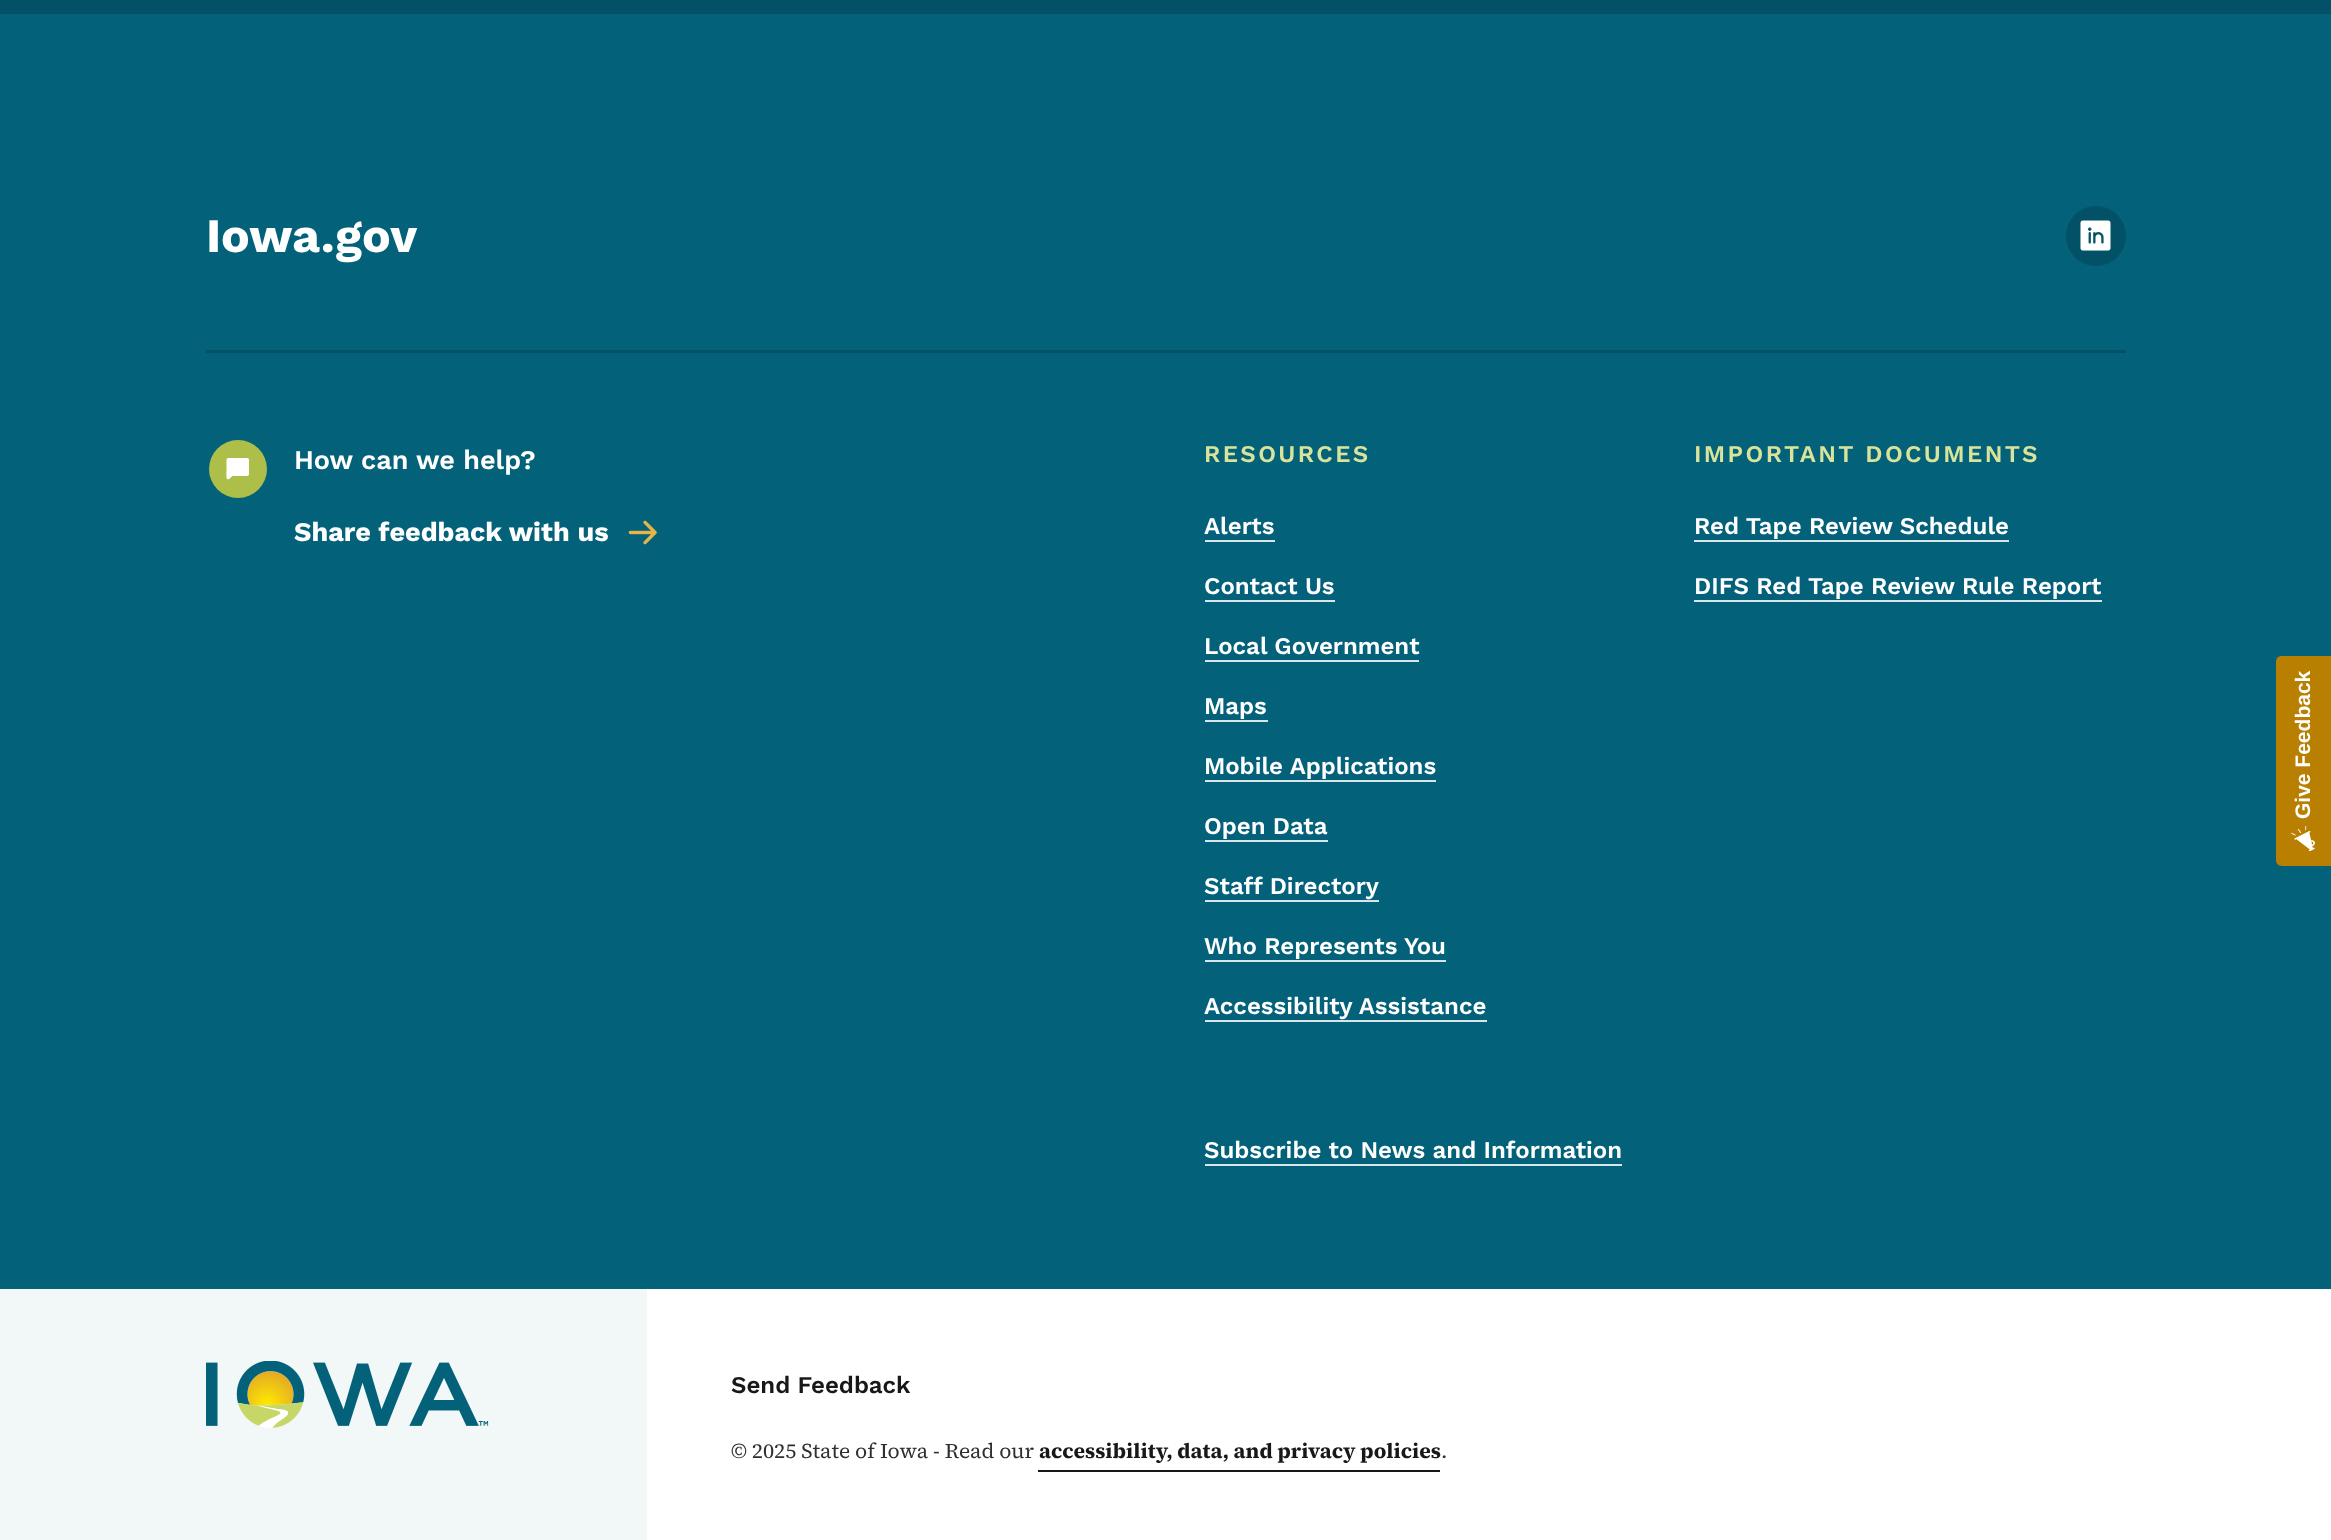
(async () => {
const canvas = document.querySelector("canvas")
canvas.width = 2331
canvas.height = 1540
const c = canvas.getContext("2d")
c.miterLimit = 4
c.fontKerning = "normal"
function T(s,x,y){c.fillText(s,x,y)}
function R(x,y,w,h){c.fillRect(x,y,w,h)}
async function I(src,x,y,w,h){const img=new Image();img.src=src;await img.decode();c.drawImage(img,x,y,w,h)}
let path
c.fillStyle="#fff"
R(0,0,2331,1540)
c.fillStyle="#03617a"
R(0,14,2331,1275)
c.fillStyle="#035166"
R(0,0,2331,14)
R(206,350,1920,3)
c.font="bold 48px Work Sans"
c.fillStyle="#fff"
T("Iowa.gov",206,252)
await I("1.png",2066,206,60,60)
c.fillStyle="#aebf49"
c.beginPath()
c.arc(238,469,29,0,7)
c.fill()
c.fillStyle="#fff"
path = new Path2D("M247.5 458h-16c-5.5 0-5 0-5 5v5.5c0 6-1 12.5 2.5 10.5l3.5-3h12.5c4 0 4 0 4-4.5v-9c0-1.5 .5-4.5-1.5-4.5z")
c.fill(path)
c.font="600 27px Work Sans"
T("How can we help?",294,469)
c.font="bold 27px Work Sans"
T("Share feedback with us",294,541)
await I("2.png",628,520,29,25)
c.letterSpacing="2.4px"
c.font="600 24px Work Sans"
c.fillStyle="#d9e49a"
T("RESOURCES",1204,462)
c.letterSpacing="0px"
c.fillStyle="#fff"
T("Alerts",1204,534)
c.fillStyle="#d7e6ea"
R(1205,540,70,2)
c.fillStyle="#fff"
T("Contact Us",1204,594)
c.fillStyle="#d7e6ea"
R(1205,600,130,2)
c.fillStyle="#fff"
T("Local Government",1204,654)
c.fillStyle="#d7e6ea"
R(1205,660,214,2)
c.fillStyle="#fff"
T("Maps",1204,714)
c.fillStyle="#d7e6ea"
R(1205,720,63,2)
c.fillStyle="#fff"
T("Mobile Applications",1204,774)
c.fillStyle="#d7e6ea"
R(1205,780,231,2)
c.fillStyle="#fff"
T("Open Data",1204,834)
c.fillStyle="#d7e6ea"
R(1205,840,123,2)
c.fillStyle="#fff"
T("Staff Directory",1204,894)
c.fillStyle="#d7e6ea"
R(1205,900,174,2)
c.fillStyle="#fff"
T("Who Represents You",1204,954)
c.fillStyle="#d7e6ea"
R(1205,960,241,2)
c.fillStyle="#fff"
T("Accessibility Assistance",1204,1014)
c.fillStyle="#d7e6ea"
R(1205,1020,282,2)
c.letterSpacing="2.4px"
c.fillStyle="#d9e49a"
T("IMPORTANT DOCUMENTS",1694,462)
c.letterSpacing="0px"
c.fillStyle="#fff"
T("Red Tape Review Schedule",1694,534)
c.fillStyle="#d7e6ea"
R(1694,540,315,2)
c.fillStyle="#fff"
T("DIFS Red Tape Review Rule Report",1694,594)
c.fillStyle="#d7e6ea"
R(1694,600,408,2)
c.fillStyle="#fff"
T("Subscribe to News and Information",1204,1158)
c.fillStyle="#d7e6ea"
R(1205,1164,417,2)
c.fillStyle="#f2f7f8"
R(0,1289,647,251)
await I("3.png",206,1361,283,67)
c.fillStyle="#171818"
T("Send Feedback",731,1393)
c.font="21px 'Source Serif 4'"
c.fillStyle="#2e3030"
T("© 2025 State of Iowa - Read our",731,1458)
c.font="bold 21px 'Source Serif 4'"
c.fillStyle="#171818"
T("accessibility, data, and privacy policies",1039,1458)
R(1038,1470,402,2)
c.font="21px 'Source Serif 4'"
c.fillStyle="#2e3030"
T(".",1441,1458)
c.fillStyle="#b87f00"
path = new Path2D("M2331 866h-49c-4 0-6-3-6-6v-198c0-4 2-6 6-6h49z")
c.fill(path)
c.font="bold 21px Liberation Sans"
c.fillStyle="#fff"
c.save()
c.translate(2310,819)
c.rotate(-90 * Math.PI / 180)
c.fillText("Give Feedback",0,0)
c.restore()
await I("4.png",2291,825,24,27)
})()
